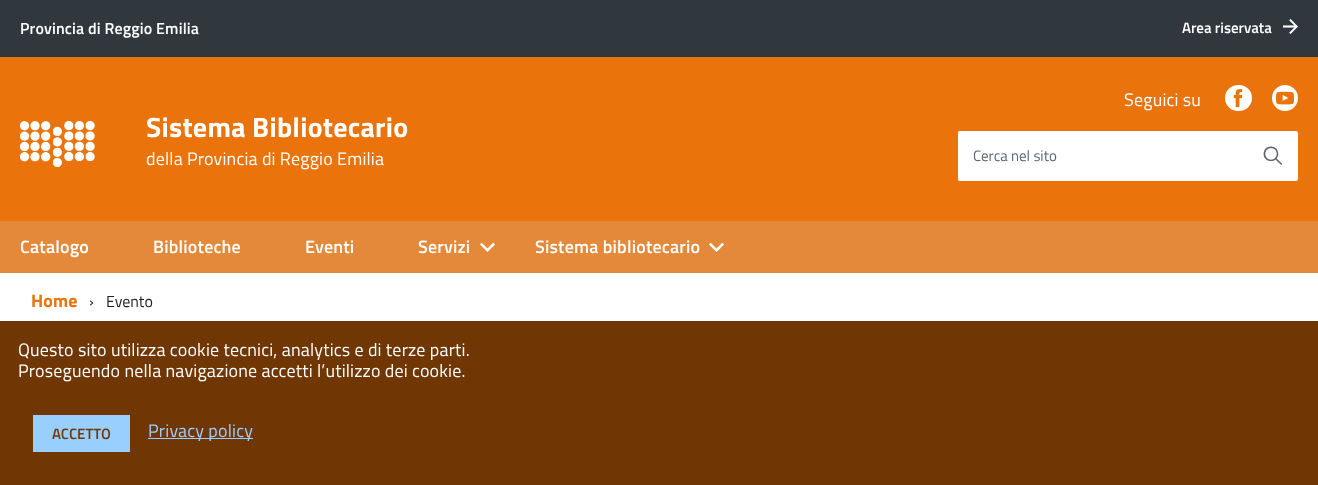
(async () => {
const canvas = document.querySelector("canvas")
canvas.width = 1318
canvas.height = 485
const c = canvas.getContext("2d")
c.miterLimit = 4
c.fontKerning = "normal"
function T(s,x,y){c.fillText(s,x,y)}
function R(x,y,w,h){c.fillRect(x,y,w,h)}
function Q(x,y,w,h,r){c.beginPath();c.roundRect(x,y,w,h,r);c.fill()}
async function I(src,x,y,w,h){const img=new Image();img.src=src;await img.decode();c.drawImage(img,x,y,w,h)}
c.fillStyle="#fff"
R(0,0,1318,485)
c.fillStyle="#30373d"
R(0,0,1318,57)
c.letterSpacing="0.15px"
c.font="600 16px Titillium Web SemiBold"
c.fillStyle="#fff"
T("Provincia di Reggio Emilia",20,34)
c.letterSpacing="0px"
c.font="600 15px Titillium Web SemiBold"
T("Area riservata",1182,33)
c.font="15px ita"
T("⟶",1283,33)
c.fillStyle="#ea730b"
R(0,57,1318,164)
await I("1.png",20,120,75,47)
c.letterSpacing="0.25px"
c.font="bold 28px Titillium Web"
c.fillStyle="#fff"
T("Sistema Bibliotecario",146,137)
c.letterSpacing="0.18px"
c.font="18px Titillium Web"
T("della Provincia di Reggio Emilia",146,165)
T("Seguici su",1124,106)
Q(1225,85,27,26,13)
await I("2.png",1233,89,10,19)
c.beginPath()
c.arc(1285,98,13,0,7)
c.fill()
await I("3.png",1276,91,18,14)
Q(958,131,340,50,2)
Q(958,131,290,50,2)
c.letterSpacing="0px"
c.font="bold 18px ita"
c.fillStyle="#5a6772"
c.save()
c.translate(1281,165)
c.rotate(-90 * Math.PI / 180)
c.fillText("🔍",0,0)
c.restore()
c.font="15px Titillium Web"
T("Cerca nel sito",973,161)
c.fillStyle="#e4893a"
R(0,221,1318,52)
c.letterSpacing="0.18px"
c.font="600 18px Titillium Web SemiBold"
c.fillStyle="#fff"
T("Catalogo",20,253)
T("Biblioteche",153,253)
T("Eventi",305,253)
T("Servizi",418,253)
c.font="15px ita"
T("⏶",480,254)
c.font="600 18px Titillium Web SemiBold"
T("Sistema bibliotecario",535,253)
c.font="15px ita"
T("⏶",709,254)
c.font="bold 18px Titillium Web"
c.fillStyle="#ea730b"
T("Home",31,307)
c.letterSpacing="0px"
c.font="16px Titillium Web"
c.fillStyle="#1c2024"
T("›",89,307)
T("Evento",106,307)
c.fillStyle="#703705"
R(0,321,1318,164)
c.letterSpacing="0.18px"
c.font="18px Titillium Web"
c.fillStyle="#fff"
T("Questo sito utilizza cookie tecnici, analytics e di terze parti.",18,356)
T("Proseguendo nella navigazione accetti l’utilizzo dei cookie.",18,377)
c.fillStyle="#99cfff"
R(33,415,97,37)
c.letterSpacing="0px"
c.font="600 15px Titillium Web SemiBold"
c.fillStyle="#703705"
T("ACCETTO",52,439)
c.fillStyle="#99cfff"
R(148,438,105,1)
c.letterSpacing="0.18px"
c.font="18px Titillium Web"
T("Privacy policy",148,437)
})()
